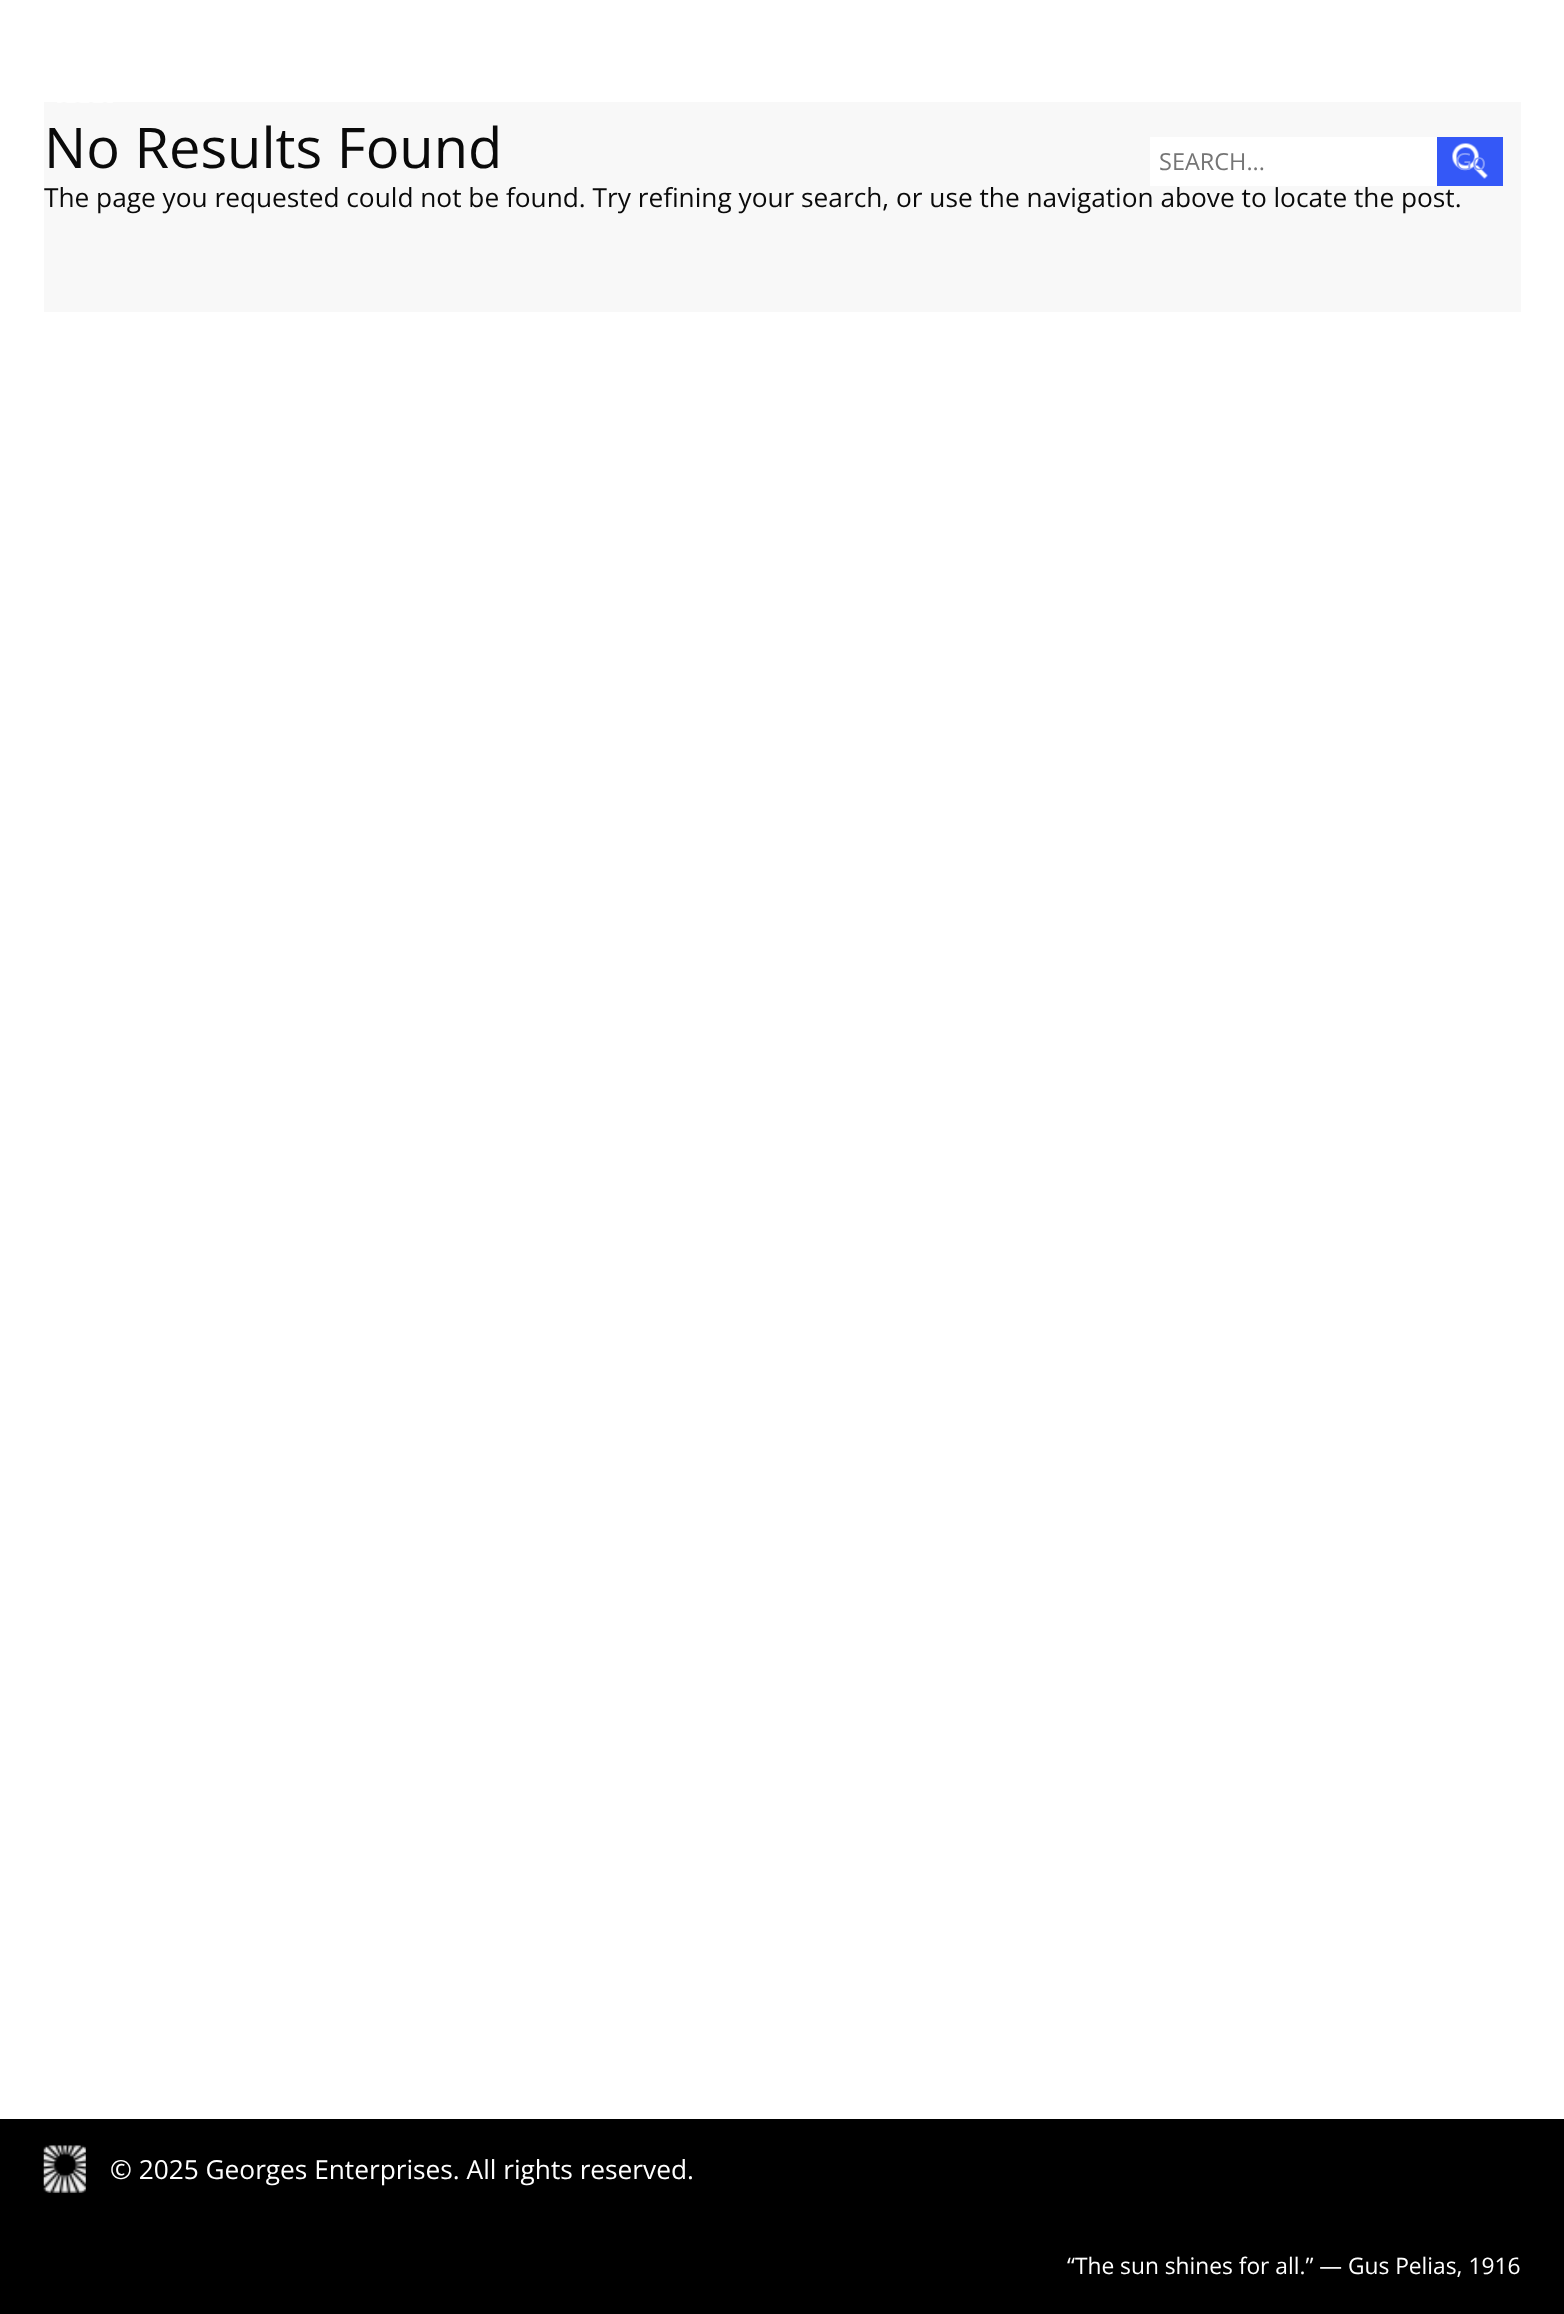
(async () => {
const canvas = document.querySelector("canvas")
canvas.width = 1564
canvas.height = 2314
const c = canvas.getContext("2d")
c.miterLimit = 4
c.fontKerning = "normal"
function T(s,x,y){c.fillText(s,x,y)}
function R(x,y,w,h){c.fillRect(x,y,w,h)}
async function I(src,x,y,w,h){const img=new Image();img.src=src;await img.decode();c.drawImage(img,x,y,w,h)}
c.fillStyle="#fff"
R(0,0,1564,2314)
c.fillStyle="#f8f8f8"
R(44,102,1477,210)
c.font="56px Open Sans"
c.fillStyle="#0a0a0a"
T("No Results Found",44,168)
c.font="26.25px Open Sans"
T("The page you requested could not be found. Try refining your search, or use the navigation above to locate the post.",44,207)
c.fillStyle="#000"
R(0,2119,1564,195)
await I("1.png",43,2145,43,48)
c.fillStyle="#fff"
T("© 2025 Georges Enterprises. All rights reserved.",110,2179)
c.font="22.75px Open Sans"
T("“The sun shines for all.” — Gus Pelias, 1916",1067,2274)
await I("2.png",57,102,56,1)
R(1150,137,287,49)
c.font="23.5px Open Sans"
c.fillStyle="#757575"
T("SEARCH...",1159,170)
c.fillStyle="#3458f7"
R(1437,137,66,49)
await I("3.png",1452,143,36,36)
c.fillStyle="#879cfa"
T("Go",1455,170)
})()
